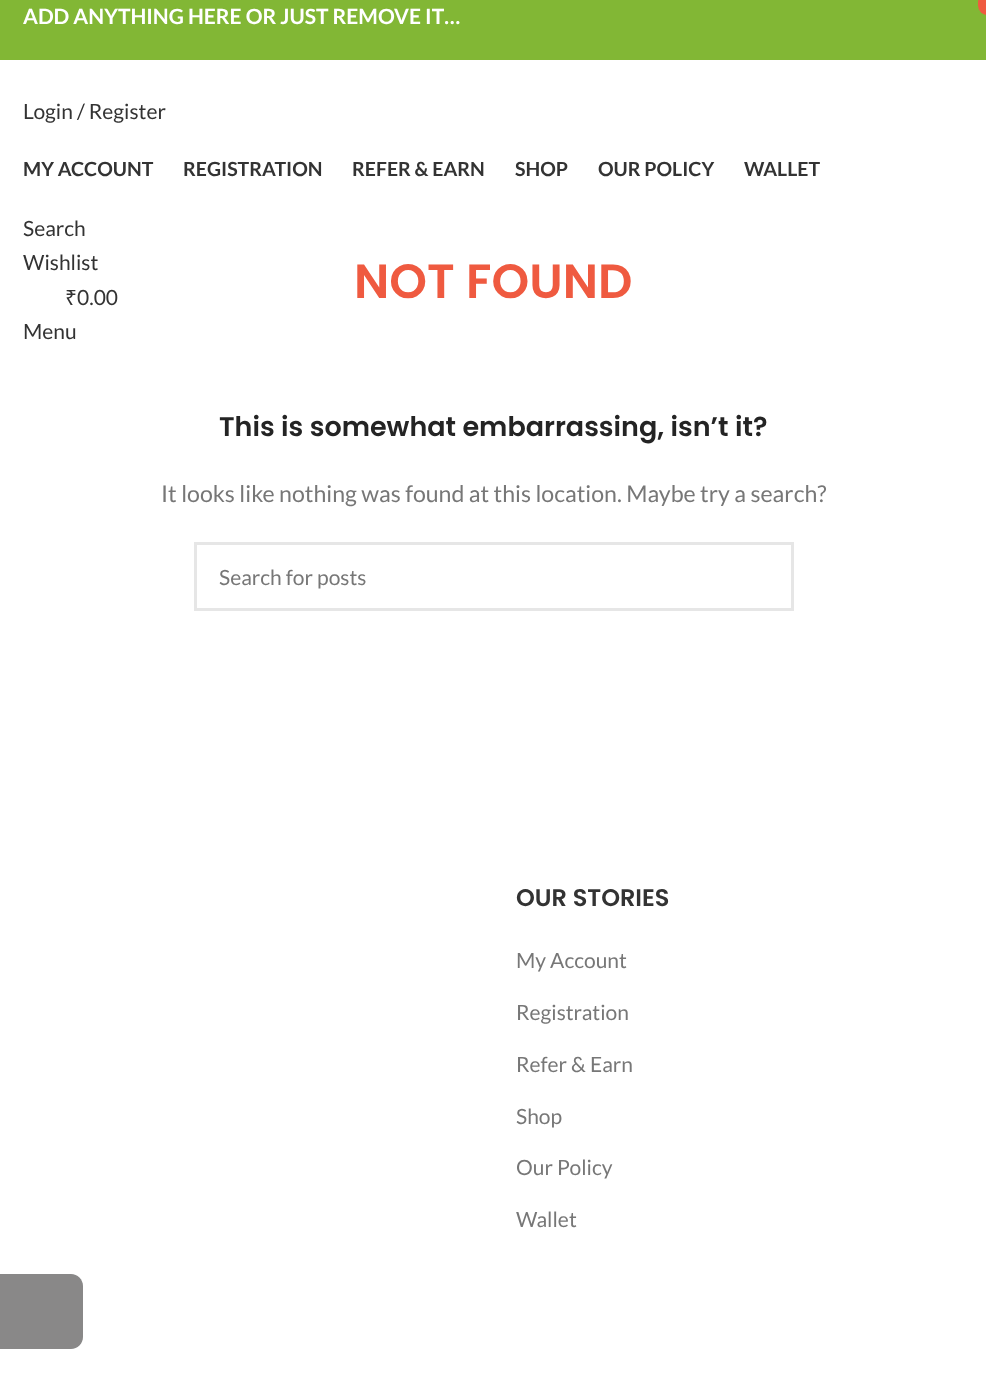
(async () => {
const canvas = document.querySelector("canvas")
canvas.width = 986
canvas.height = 1393
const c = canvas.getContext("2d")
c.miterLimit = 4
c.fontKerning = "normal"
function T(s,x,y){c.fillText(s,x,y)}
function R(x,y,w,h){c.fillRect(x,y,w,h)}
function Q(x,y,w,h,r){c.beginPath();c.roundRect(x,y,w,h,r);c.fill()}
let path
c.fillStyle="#fff"
R(0,0,986,1393)
c.fillStyle="#82b735"
R(0,0,986,60)
c.font="bold 21px Lato"
c.fillStyle="#fff"
T("ADD ANYTHING HERE OR JUST REMOVE IT…",23,24)
c.fillStyle="#ef5a40"
Q(978,-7,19,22,11)
c.font="21px Lato"
c.fillStyle="#333"
T("Login / Register",23,119)
T("Search",23,236)
T("Wishlist",23,270)
c.font="21px Noto Sans"
T("₹",65,305)
c.font="21px Lato"
T("0.00",77,305)
T("Menu",23,339)
c.font="bold 19.5px Lato"
T("MY ACCOUNT",23,176)
T("REGISTRATION",183,176)
T("REFER & EARN",352,176)
T("SHOP",515,176)
T("OUR POLICY",598,176)
T("WALLET",744,176)
c.font="600 48px Poppins"
c.fillStyle="#ef5a40"
T("NOT FOUND",354,298)
c.font="600 27px Poppins"
c.fillStyle="#242424"
T("This is somewhat embarrassing, isn’t it?",219,436)
c.font="23.1px Lato"
c.fillStyle="#777"
T("It looks like nothing was found at this location. Maybe try a search?",161,502)
c.strokeStyle="#e6e6e6"
c.lineWidth=3
c.strokeRect(195.5,543.5,597,66)
c.font="21px Lato"
T("Search for posts",219,585)
c.font="600 24px Poppins"
c.fillStyle="#333"
T("OUR STORIES",516,906)
c.font="21px Lato"
c.fillStyle="#777"
T("My Account",516,968)
T("Registration",516,1020)
T("Refer & Earn",516,1072)
T("Shop",516,1124)
T("Our Policy",516,1175)
T("Wallet",516,1227)
c.fillStyle="#898888"
path = new Path2D("M-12 1274h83c6.5 0 12 5.5 12 12v51c0 6.5-5.5 12-12 12h-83z")
c.fill(path)
})()
